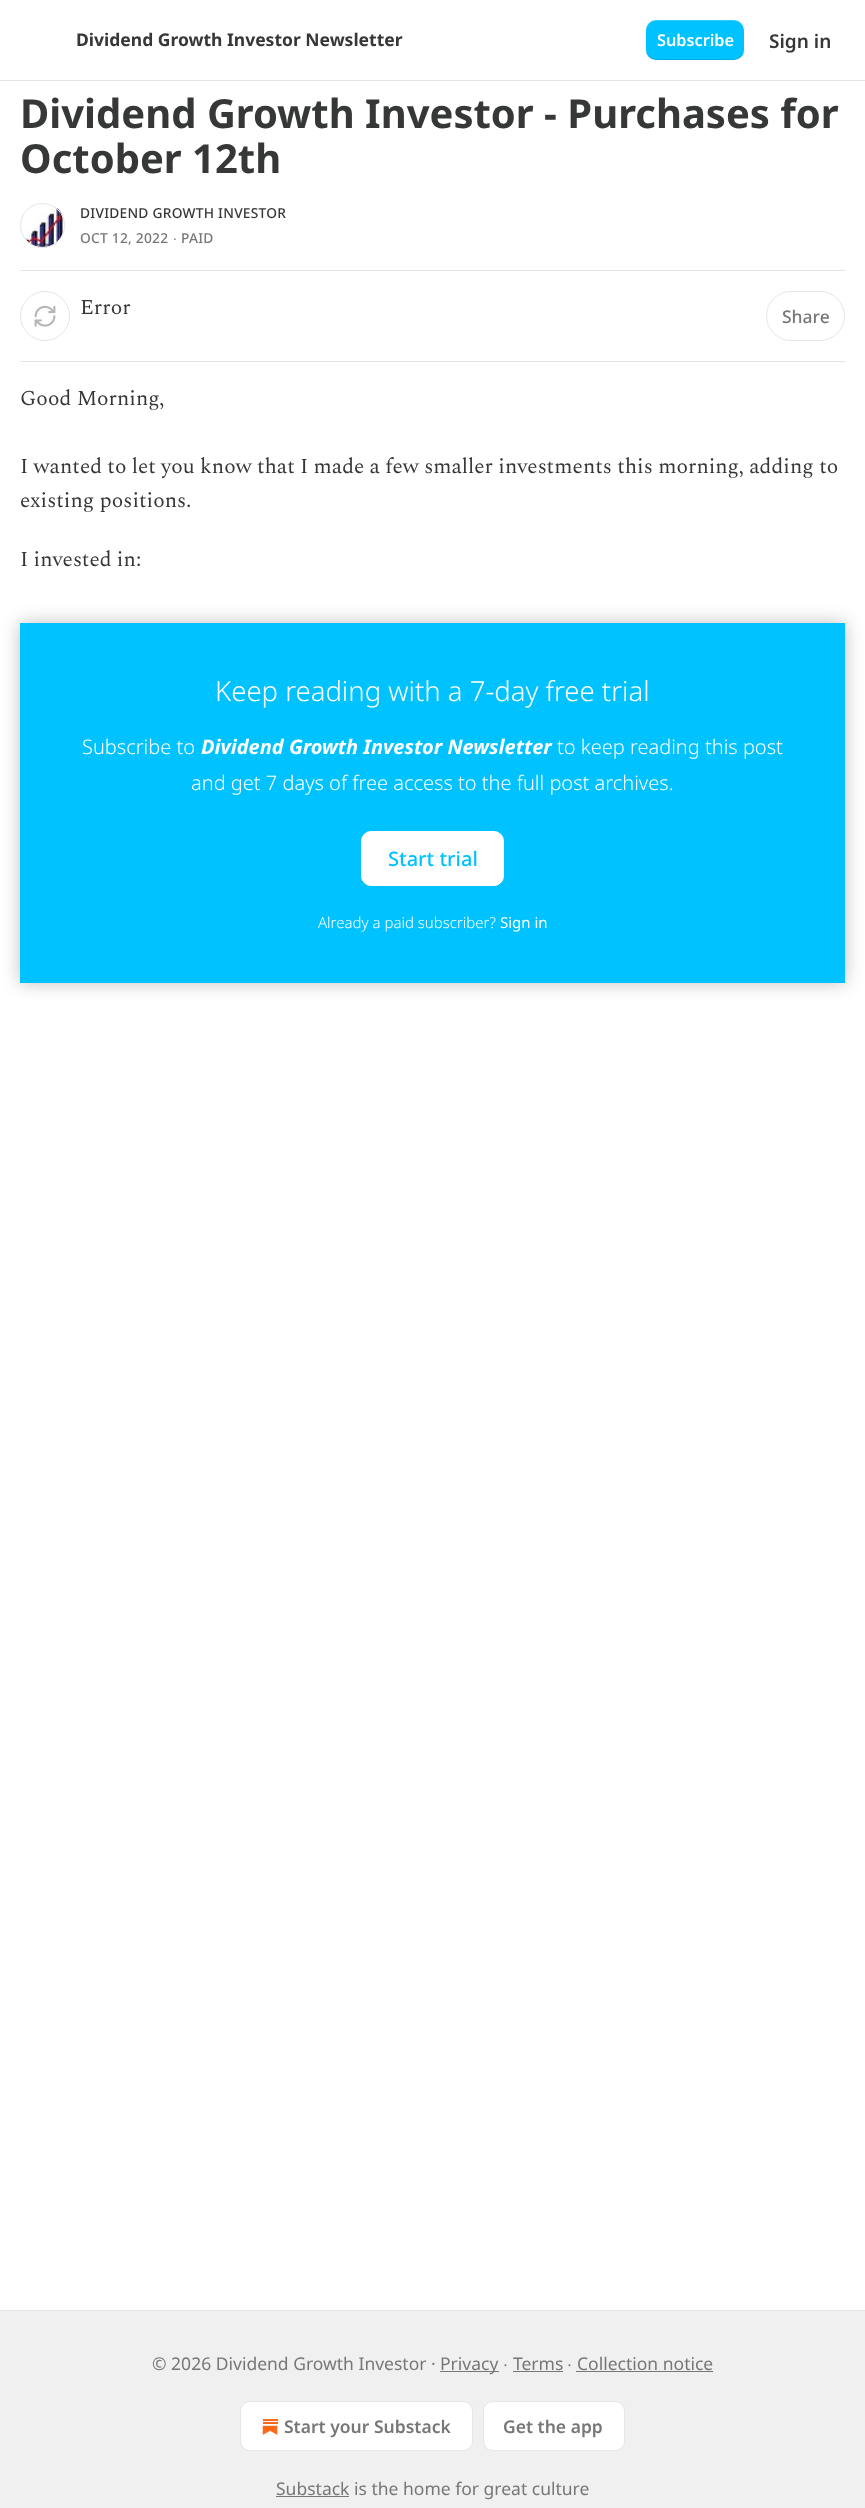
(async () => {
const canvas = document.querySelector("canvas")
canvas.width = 865
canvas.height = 2508
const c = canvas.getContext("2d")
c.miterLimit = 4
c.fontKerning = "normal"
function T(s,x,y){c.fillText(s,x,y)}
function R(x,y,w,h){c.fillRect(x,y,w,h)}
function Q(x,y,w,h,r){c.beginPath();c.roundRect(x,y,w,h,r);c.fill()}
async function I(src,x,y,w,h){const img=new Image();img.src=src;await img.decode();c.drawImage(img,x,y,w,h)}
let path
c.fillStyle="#fff"
R(0,0,865,2508)
c.fillStyle="#e6e6e6"
R(0,80,865,1)
c.font="bold 17.5px Noto Sans"
c.fillStyle="#363737"
T("Dividend Growth Investor Newsletter",76,46)
c.fillStyle="#00c2ff"
Q(646,20,98,40,10)
c.fillStyle="#0000001a"
path = new Path2D("M646 49c0 14 13 11 23 11h52c10 0 23 3 23-11c0 5-5 10-10 10h-78c-5 0-10-5-10-10z")
c.fill(path)
c.fillStyle="#ffffff33"
path = new Path2D("M656 21h78c5 0 10 5 10 10c0-14-13-11-23-11h-52c-10 0-23-3-23 11c0-5 5-10 10-10z")
c.fill(path)
c.font="600 16.25px Noto Sans"
c.fillStyle="#fff"
T("Subscribe",657,46)
c.font="600 19px Noto Sans"
c.fillStyle="#363737"
T("Sign in",769,48)
c.font="bold 40px Noto Sans"
T("Dividend Growth Investor - Purchases for",20,128)
T("October 12th",20,173)
c.beginPath()
c.arc(42.5,225.5,22,0,7)
c.strokeStyle="#e6e6e6"
c.stroke()
await I("1.png",20,203,45,45)
c.beginPath()
c.arc(42.5,225.5,22,0,7)
c.stroke()
c.letterSpacing="0.25px"
c.font="500 13.75px Noto Sans"
T("DIVIDEND GROWTH INVESTOR",80,218)
c.fillStyle="#777"
T("OCT 12, 2022",80,243)
c.font="13.75px Liberation Sans"
T("∙",173,243)
c.font="500 13.75px Noto Sans"
T("PAID",181,243)
c.fillStyle="#e6e6e6"
R(20,270,825,1)
R(20,361,825,1)
c.beginPath()
c.arc(45,316,24.5,0,7)
c.stroke()
await I("2.png",34,305,22,22)
c.letterSpacing="0px"
c.font="21.25px Spectral"
c.fillStyle="#363737"
T("Error",80,314)
c.beginPath()
c.roundRect(766.5,291.5,78,49,24.5)
c.stroke()
c.font="500 17.5px Noto Sans"
c.fillStyle="#777"
T("Share",782,323)
c.font="21.25px Spectral"
c.fillStyle="#363737"
T("Good Morning,",20,405)
T("I wanted to let you know that I made a few smaller investments this morning, adding to",20,473)
T("existing positions.",20,507)
T("I invested in:",20,566)
c.fillStyle="#00c2ff"
R(20,623,825,360)
c.fillStyle="#fff"
c.beginPath()
c.roundRect(361.5,831.5,142,54,9.5)
c.fill()
c.strokeStyle="#fff"
c.stroke()
c.save()
path = new Path2D("M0 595h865v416h-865zm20 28h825v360h-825z")
c.clip(path,"evenodd")
c.fillStyle="#00000040"
c.filter="blur(9px)"
c.beginPath()
c.rect(20,623,825,360)
c.fill()
c.filter="none"
c.restore()
c.font="300 27.5px Noto Sans"
T("Keep reading with a 7-day free trial",215,701)
c.font="300 20px Noto Sans"
T("Subscribe to",82,754)
c.font="italic bold 20px Noto Sans"
T("Dividend Growth Investor Newsletter",201,754)
c.font="300 20px Noto Sans"
T("to keep reading this post",557,754)
T("and get 7 days of free access to the full post archives.",191,790)
c.font="500 20px Noto Sans"
c.fillStyle="#00c2ff"
T("Start trial",388,866)
c.font="300 15px Noto Sans"
c.fillStyle="#fff"
T("Already a paid subscriber?",318,928)
c.font="15px Noto Sans"
T("Sign in",500,928)
c.fillStyle="#f0f0f0"
R(0,2311,865,197)
c.fillStyle="#e6e6e6"
R(0,2310,865,1)
c.font="17.5px Noto Sans"
c.fillStyle="#777"
T("© 2026 Dividend Growth Investor ·",152,2370)
R(440,2371,59,1)
T("Privacy",440,2370)
c.font="17.5px Liberation Sans"
T("∙",503,2370)
c.font="17.5px Noto Sans"
T("Terms",513,2370)
R(513,2371,50,1)
c.font="17.5px Liberation Sans"
T("∙",567,2370)
c.font="17.5px Noto Sans"
T("Collection notice",577,2370)
R(576,2371,137,1)
c.fillStyle="#fff"
c.beginPath()
c.roundRect(240.5,2401.5,232,49,9.5)
c.fill()
c.strokeStyle="#e6e6e6"
c.stroke()
await I("3.png",262,2419,16,16)
c.font="600 17.5px Noto Sans"
c.fillStyle="#777"
T("Start your Substack",284,2433)
c.fillStyle="#fff"
c.beginPath()
c.roundRect(483.5,2401.5,141,49,9.5)
c.fill()
c.stroke()
c.fillStyle="#777"
T("Get the app",503,2433)
R(276,2496,73,1)
c.font="17.5px Noto Sans"
T("Substack is the home for great culture",276,2495)
})()
